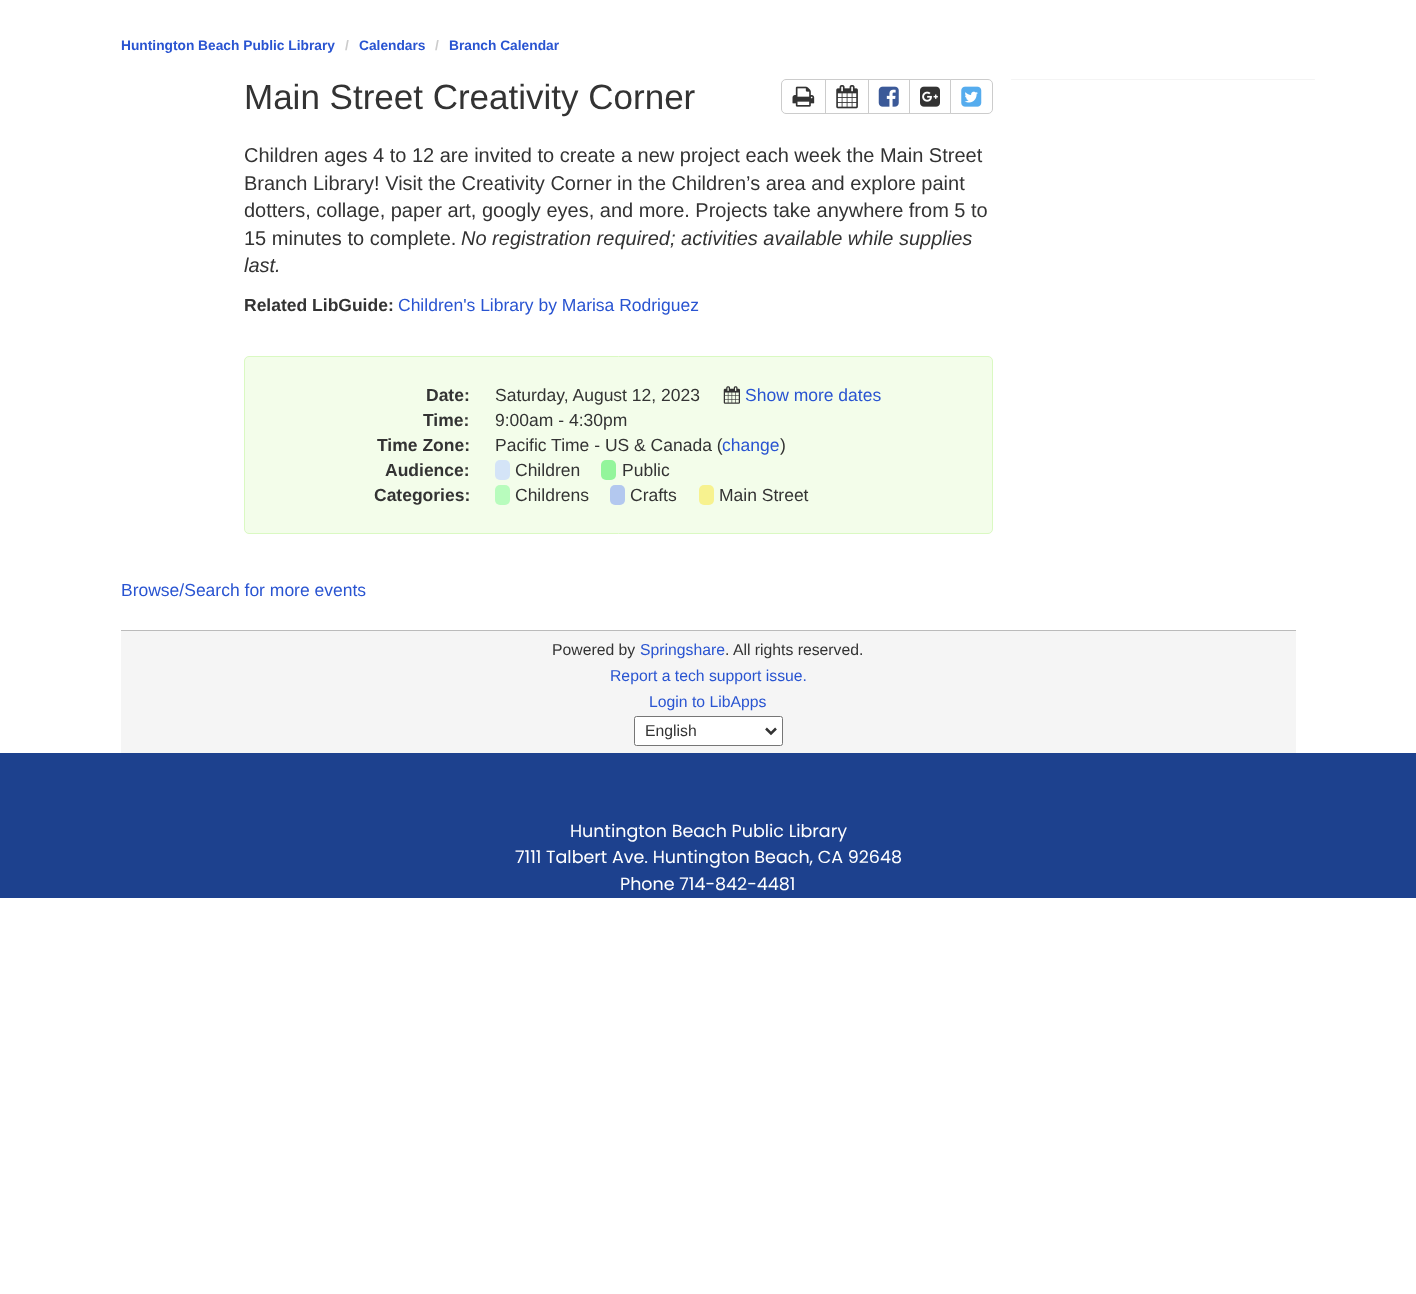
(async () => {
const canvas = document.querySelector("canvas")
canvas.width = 1416
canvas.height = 1294
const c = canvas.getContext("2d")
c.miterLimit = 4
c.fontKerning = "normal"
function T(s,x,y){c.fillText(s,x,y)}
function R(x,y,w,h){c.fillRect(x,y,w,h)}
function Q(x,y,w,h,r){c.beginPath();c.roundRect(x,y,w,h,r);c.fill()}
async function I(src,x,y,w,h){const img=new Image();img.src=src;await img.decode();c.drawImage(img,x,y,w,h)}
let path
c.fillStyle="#fff"
R(0,0,1416,1294)
c.font="bold 13.75px Liberation Sans"
c.fillStyle="#2954d1"
T("Huntington Beach Public Library",121,50)
c.fillStyle="#ccc"
T("/",345,50)
c.fillStyle="#2954d1"
T("Calendars",359,50)
c.fillStyle="#ccc"
T("/",435,50)
c.fillStyle="#2954d1"
T("Branch Calendar",449,50)
c.fillStyle="#f4f4f4"
Q(1011,79,304,1,.5)
c.font="35px Liberation Sans"
c.fillStyle="#333"
T("Main Street Creativity Corner",244,109)
c.beginPath()
c.roundRect(781.5,79.5,44,34,[4.5,0,0,4.5])
c.strokeStyle="#ccc"
c.stroke()
await I("1.png",792,86,23,21)
c.strokeRect(825.5,79.5,43,34)
await I("2.png",836,85,22,24)
c.strokeRect(868.5,79.5,41,34)
await I("3.png",878,86,21,21)
c.strokeRect(909.5,79.5,41,34)
await I("4.png",920,86,20,21)
c.fillStyle="#fff"
c.beginPath()
c.roundRect(950.5,79.5,42,34,[0,4.5,4.5,0])
c.fill()
c.stroke()
await I("5.png",961,86,21,21)
c.font="20px Liberation Sans"
c.fillStyle="#333"
T("Children ages 4 to 12 are invited to create a new project each week the Main Street",244,162)
T("Branch Library! Visit the Creativity Corner in the Children’s area and explore paint",244,190)
T("dotters, collage, paper art, googly eyes, and more. Projects take anywhere from 5 to",244,217)
T("15 minutes to complete.",244,245)
c.font="italic 20px Liberation Sans"
T("No registration required; activities available while supplies",461,245)
T("last.",244,272)
c.font="bold 17.5px Liberation Sans"
T("Related LibGuide:",244,311)
c.font="17.5px Liberation Sans"
c.fillStyle="#2954d1"
T("Children's Library by Marisa Rodriguez",398,311)
c.fillStyle="#f3fdea"
c.beginPath()
c.roundRect(244.5,356.5,748,177,4.5)
c.fill()
c.strokeStyle="#daf9c2"
c.stroke()
c.font="bold 17.5px Liberation Sans"
c.fillStyle="#333"
T("Date:",426,401)
c.font="17.5px Liberation Sans"
T("Saturday, August 12, 2023",495,401)
await I("6.png",723,386,17,18)
c.fillStyle="#2954d1"
T("Show more dates",745,401)
c.font="bold 17.5px Liberation Sans"
c.fillStyle="#333"
T("Time:",423,426)
c.font="17.5px Liberation Sans"
T("9:00am - 4:30pm",495,426)
c.font="bold 17.5px Liberation Sans"
T("Time Zone:",377,451)
c.font="17.5px Liberation Sans"
T("Pacific Time - US & Canada (",495,451)
c.fillStyle="#2954d1"
T("change",722,451)
c.fillStyle="#333"
T(")",780,451)
c.font="bold 17.5px Liberation Sans"
T("Audience:",385,476)
c.fillStyle="#d4e4f7"
Q(495,460,15,20,5)
c.font="17.5px Liberation Sans"
c.fillStyle="#333"
T("Children",515,476)
c.fillStyle="#93f59b"
Q(601,460,15,20,5)
c.fillStyle="#333"
T("Public",622,476)
c.font="bold 17.5px Liberation Sans"
T("Categories:",374,501)
c.fillStyle="#b8fcbd"
Q(495,485,15,20,5)
c.font="17.5px Liberation Sans"
c.fillStyle="#333"
T("Childrens",515,501)
c.fillStyle="#b3c8ef"
Q(610,485,15,20,5)
c.fillStyle="#333"
T("Crafts",630,501)
c.fillStyle="#f7f28f"
Q(699,485,15,20,5)
c.fillStyle="#333"
T("Main Street",719,501)
c.fillStyle="#2954d1"
T("Browse/Search for more events",121,596)
c.fillStyle="#f5f5f5"
R(121,631,1175,122)
c.fillStyle="#bbb"
R(121,630,1175,1)
c.font="15.75px Liberation Sans"
c.fillStyle="#333"
T("Powered by",552,655)
c.fillStyle="#2954d1"
T("Springshare",640,655)
c.fillStyle="#333"
T(". All rights reserved.",725,655)
c.fillStyle="#2954d1"
T("Report a tech support issue.",610,681)
T("Login to LibApps",649,707)
c.fillStyle="#fff"
c.beginPath()
c.roundRect(634.5,716.5,148,29,2)
c.fill()
c.strokeStyle="#767676"
c.stroke()
path = new Path2D("M766 728.5l5 5l5-5")
c.strokeStyle="#333"
c.lineWidth=2.5
c.stroke(path)
c.fillStyle="#333"
T("English",645,736)
c.fillStyle="#1d418e"
R(0,753,1416,145)
c.font="17.5px Poppins"
c.fillStyle="#fff"
T("Huntington Beach Public Library",570,837)
T("7111 Talbert Ave. Huntington Beach, CA 92648",515,863)
T("Phone 714-842-4481",620,890)
})()
